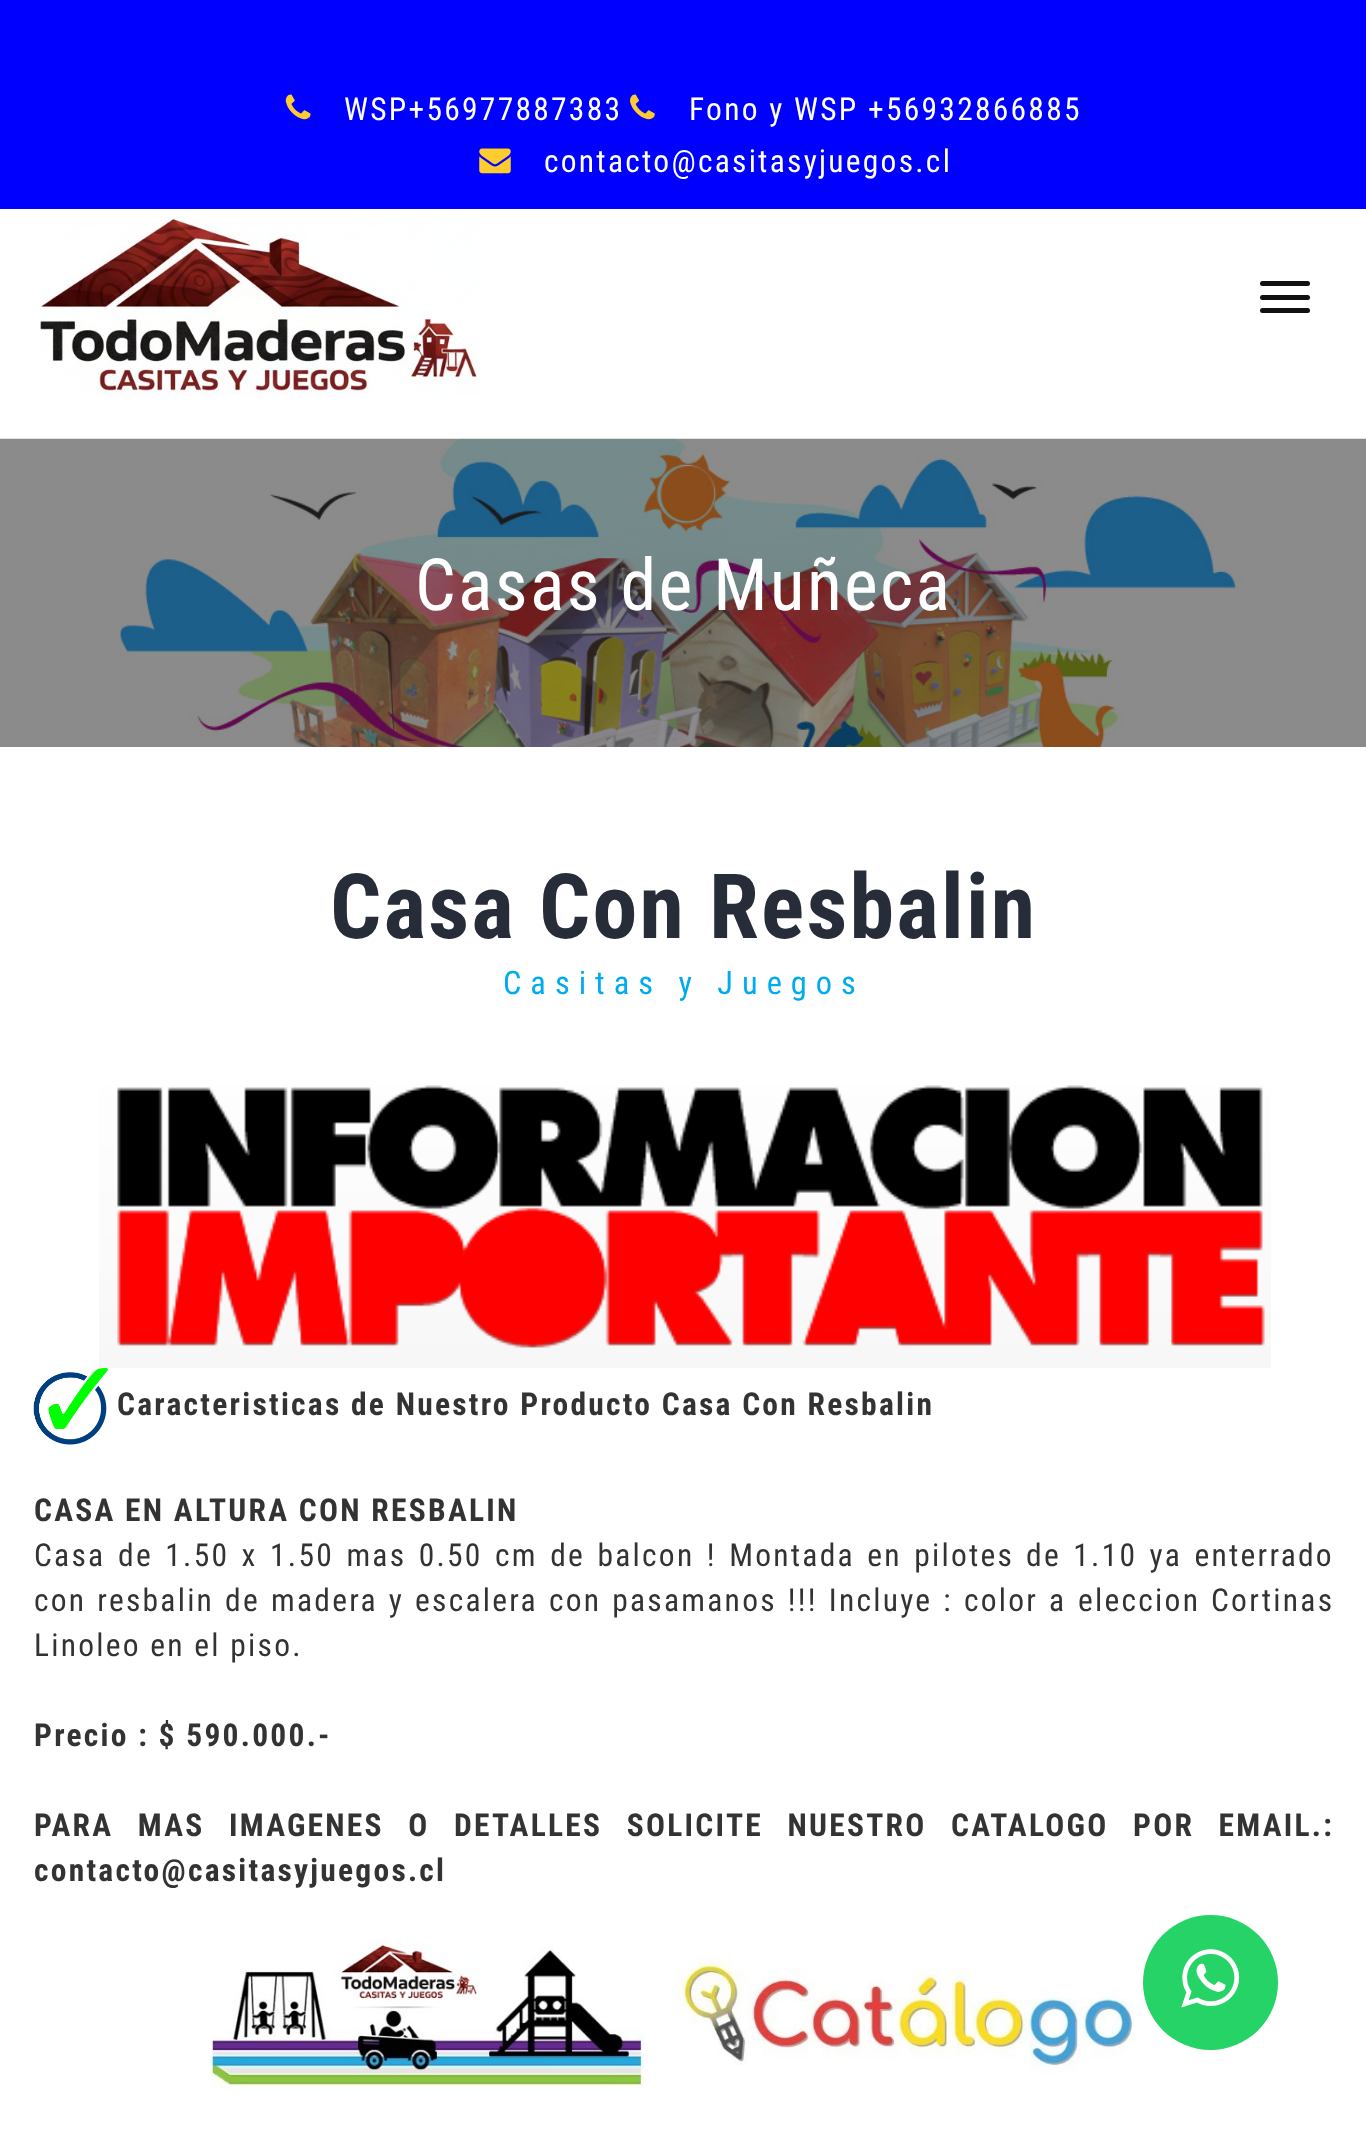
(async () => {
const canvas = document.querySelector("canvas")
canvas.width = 1366
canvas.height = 2139
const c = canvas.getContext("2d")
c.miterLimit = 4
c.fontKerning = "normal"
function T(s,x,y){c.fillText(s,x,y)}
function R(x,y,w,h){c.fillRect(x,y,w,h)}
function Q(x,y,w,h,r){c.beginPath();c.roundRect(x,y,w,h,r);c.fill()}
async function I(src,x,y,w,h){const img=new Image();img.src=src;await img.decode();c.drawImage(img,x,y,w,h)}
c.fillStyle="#fff"
R(0,0,1366,2139)
c.fillStyle="#00f"
R(0,0,1366,209)
await I("1.png",285,94,26,26)
c.letterSpacing="2.25px"
c.font="31.5px Roboto Condensed"
c.fillStyle="#fff"
T("WSP+56977887383",344,120)
await I("2.png",630,94,25,26)
T("Fono y WSP +56932866885",689,120)
await I("3.png",479,148,32,26)
T("contacto@casitasyjuegos.cl",544,172)
await I("4.png",40,216,440,180)
c.fillStyle="#111"
Q(1260,281,50,5,2.5)
Q(1260,295,50,5,2.5)
Q(1260,308,50,5,2.5)
await I("5.png",0,438,1366,309)
c.font="72px Roboto Condensed"
c.fillStyle="#fff"
T("Casas de Muñeca",415,610)
c.font="bold 90px Roboto Condensed"
c.fillStyle="#262c38"
T("Casa Con Resbalin",330,938)
c.letterSpacing="9px"
c.font="32.4px Roboto Condensed"
c.fillStyle="#00acee"
T("Casitas y Juegos",503,994)
await I("6.png",99,1085,1172,283)
await I("7.png",33,1368,75,77)
c.letterSpacing="2.25px"
c.font="bold 31.5px Roboto Condensed"
c.fillStyle="#333"
T("Caracteristicas de Nuestro Producto Casa Con Resbalin",117,1415)
T("CASA EN ALTURA CON RESBALIN",34,1521)
c.font="31.5px Roboto Condensed"
T("Casa",34,1566)
c.wordSpacing="2.9px"
T("de 1.50 x 1.50 mas 0.50 cm de balcon ! Montada en pilotes",118,1566)
T("de 1.10 ya enterrado",1026,1566)
c.wordSpacing="1.5px"
T("con resbalin de madera y escalera con pasamanos !!! Incluye : color",34,1611)
c.wordSpacing="0px"
T("a",1049,1611)
T("eleccion",1078,1611)
T("Cortinas",1211,1611)
T("Linoleo en el piso.",34,1656)
c.font="bold 31.5px Roboto Condensed"
T("Precio : $ 590.000.-",34,1746)
c.wordSpacing="15px"
T("PARA MAS IMAGENES O DETALLES SOLICITE NUESTRO CATALOGO POR EMAIL.:",34,1836)
c.wordSpacing="0px"
T("contacto@casitasyjuegos.cl",34,1881)
await I("8.png",208,1940,927,148)
c.fillStyle="#25d366"
c.beginPath()
c.arc(1210.5,1982.5,67.5,0,7)
c.fill()
await I("9.png",1181,1949,59,59)
})()
